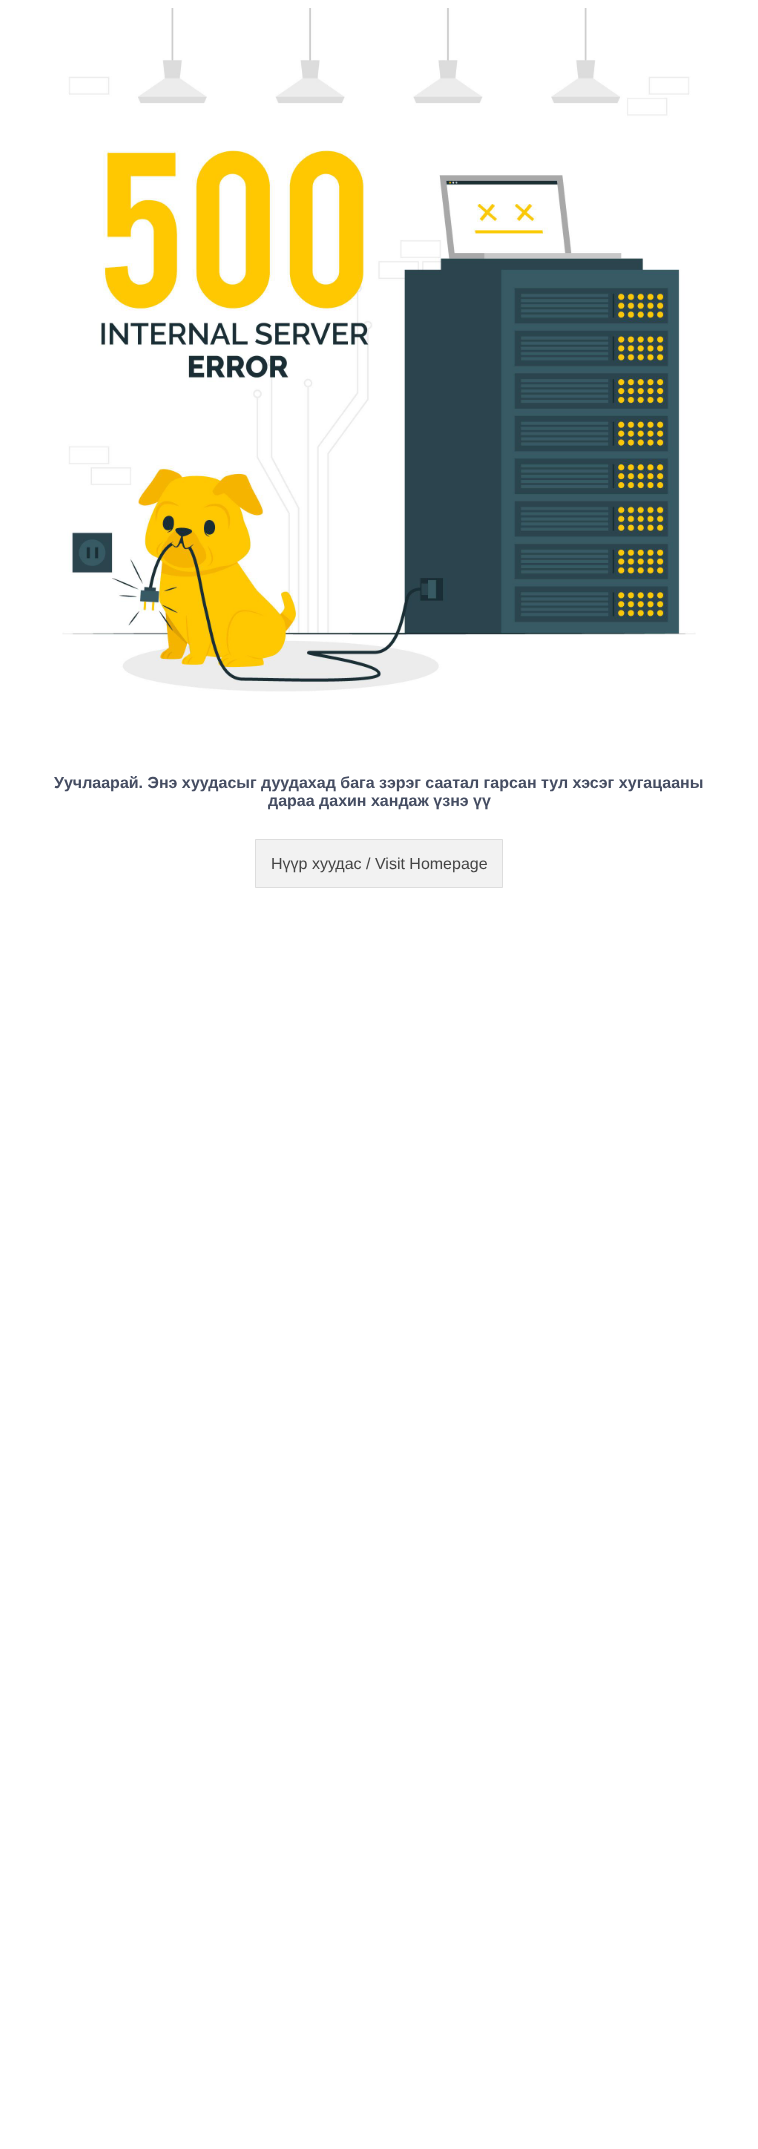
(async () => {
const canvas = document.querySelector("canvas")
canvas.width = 758
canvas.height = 2149
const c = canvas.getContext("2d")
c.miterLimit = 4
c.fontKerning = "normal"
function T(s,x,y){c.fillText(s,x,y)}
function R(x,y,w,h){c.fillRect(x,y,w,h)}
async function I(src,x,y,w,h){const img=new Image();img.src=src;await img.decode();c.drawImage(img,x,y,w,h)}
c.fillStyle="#fff"
R(0,0,758,2149)
await I("1.png",62,8,634,684)
c.font="bold 16px Liberation Sans"
c.fillStyle="#454d62"
T("Уучлаарай. Энэ хуудасыг дуудахад бага зэрэг саатал гарсан тул хэсэг хугацааны",54,788)
T("дараа дахин хандаж үзнэ үү",268,806)
c.fillStyle="#f2f2f2"
c.beginPath()
c.rect(255.5,839.5,247,48)
c.fill()
c.strokeStyle="#ddd"
c.stroke()
c.font="16px Liberation Sans"
c.fillStyle="#444"
T("Нүүр хуудас / Visit Homepage",271,869)
})()
